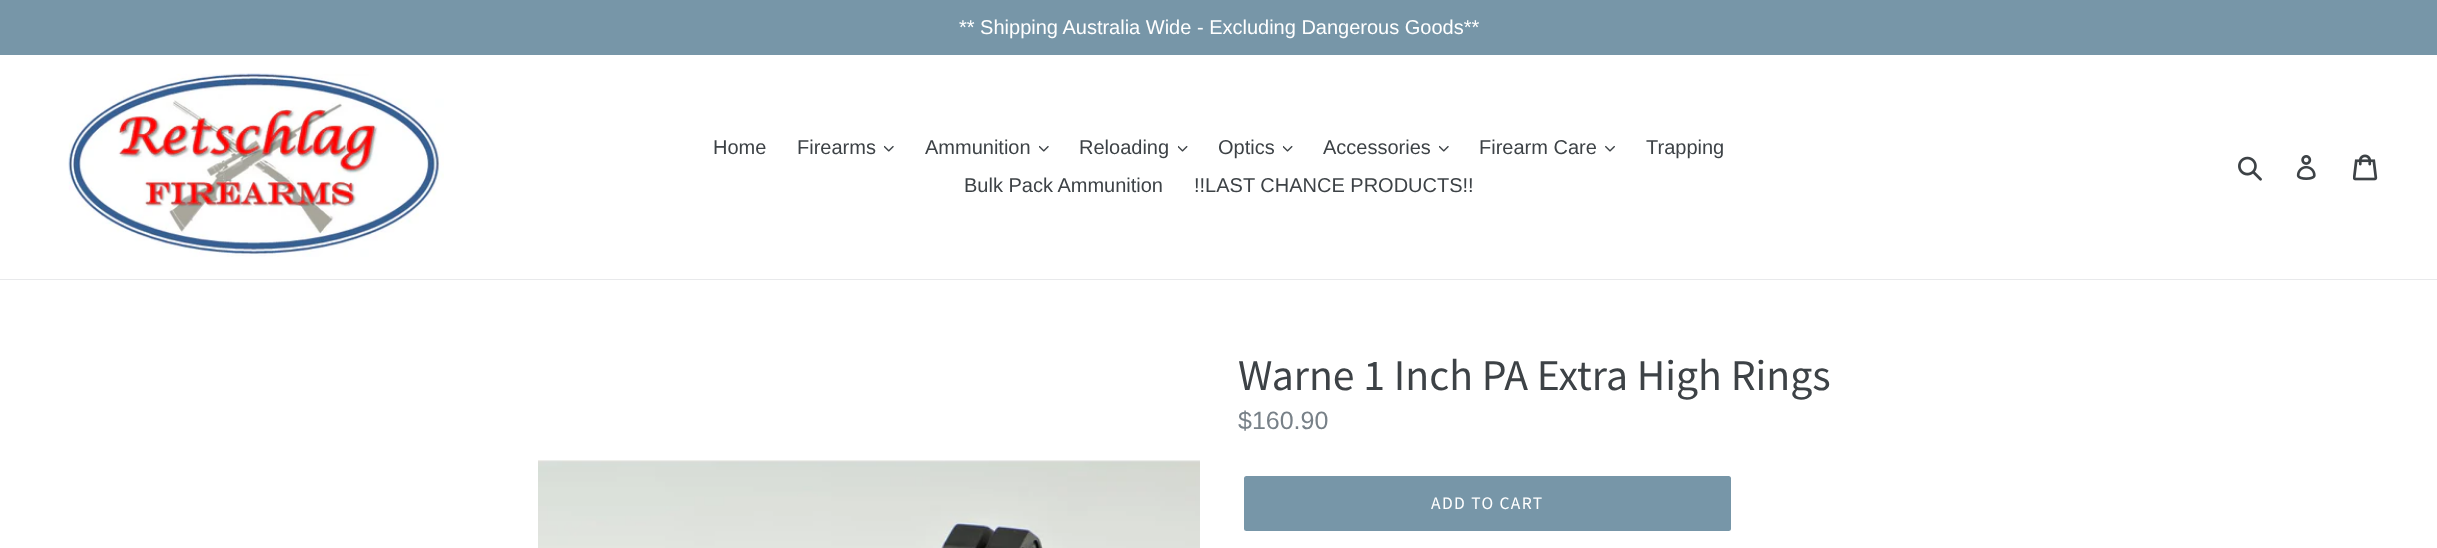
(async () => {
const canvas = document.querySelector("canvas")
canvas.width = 2437
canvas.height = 548
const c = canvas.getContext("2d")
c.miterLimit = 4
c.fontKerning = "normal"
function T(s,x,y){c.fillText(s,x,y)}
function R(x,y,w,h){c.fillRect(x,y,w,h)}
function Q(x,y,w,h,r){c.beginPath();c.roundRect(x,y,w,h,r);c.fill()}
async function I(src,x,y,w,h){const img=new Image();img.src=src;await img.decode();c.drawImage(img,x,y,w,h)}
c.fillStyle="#fff"
R(0,0,2437,548)
c.fillStyle="#7796a8"
R(0,0,2437,55)
c.font="20px Liberation Sans"
c.fillStyle="#fff"
T("** Shipping Australia Wide - Excluding Dangerous Goods**",959,34)
c.fillStyle="#e8e9eb"
R(0,279,2437,1)
await I("1.png",68,73,376,184)
c.fillStyle="#3d4246"
T("Home",713,154)
T("Firearms",797,154)
await I("2.png",884,145,10,7)
T("Ammunition",925,154)
await I("2.png",1039,145,10,7)
T("Reloading",1079,154)
await I("3.png",1178,145,10,7)
T("Optics",1218,154)
await I("3.png",1283,145,10,7)
T("Accessories",1323,154)
await I("2.png",1439,145,10,7)
T("Firearm Care",1479,154)
await I("4.png",1605,145,10,7)
T("Trapping",1646,154)
T("Bulk Pack Ammunition",964,192)
T("!!LAST CHANCE PRODUCTS!!",1194,192)
await I("5.png",2238,156,24,25)
await I("6.png",2296,155,20,25)
await I("7.png",2353,154,25,27)
await I("8.png",538,460,662,88)
c.font="43.75px Source Sans Pro"
T("Warne 1 Inch PA Extra High Rings",1238,390)
c.font="25px Liberation Sans"
c.fillStyle="#788188"
T("$160.90",1238,429)
c.fillStyle="#7796a8"
Q(1244,476,487,55,2.5)
c.letterSpacing="1.4px"
c.font="17.5px Source Sans Pro"
c.fillStyle="#fff"
T("ADD TO CART",1431,509)
})()
